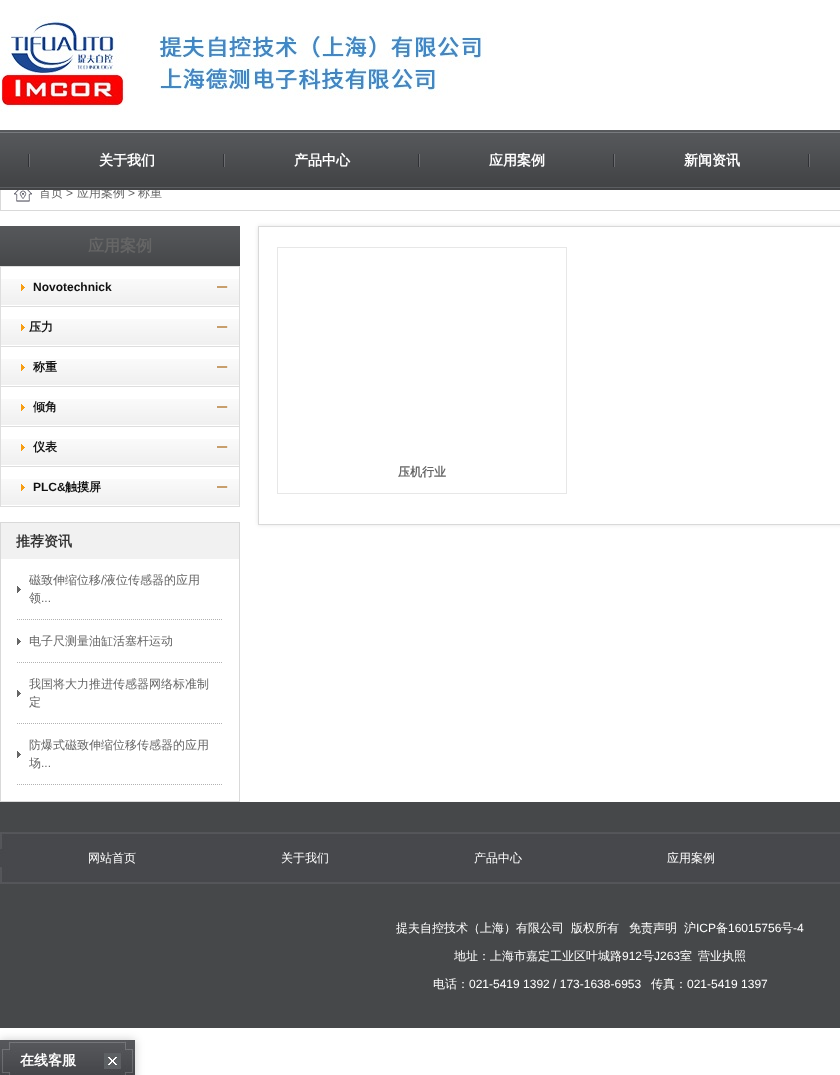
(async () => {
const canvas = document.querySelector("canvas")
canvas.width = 840
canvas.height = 1075
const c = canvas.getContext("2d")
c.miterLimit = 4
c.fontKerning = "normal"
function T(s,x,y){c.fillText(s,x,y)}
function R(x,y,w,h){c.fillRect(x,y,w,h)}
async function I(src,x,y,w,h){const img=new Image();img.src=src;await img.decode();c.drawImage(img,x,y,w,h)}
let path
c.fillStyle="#fff"
R(0,0,840,1075)
await I("1.png",0,16,487,96)
await I("4.png",14,189,18,13)
c.strokeStyle="#d9d9d9"
c.strokeRect(.5,175.5,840,35)
c.font="500 12px WenQuanYi Zen Hei"
c.fillStyle="#666"
T("首页",39,197)
T("应用案例",77,197)
T("称重",138,197)
await I("2.png",0,130,840,60)
await I("3.png",28,154,2,13)
c.font="bold 14px WenQuanYi Zen Hei"
c.fillStyle="#fff"
T("关于我们",99,165)
await I("3.png",223,154,2,13)
T("产品中心",294,165)
await I("3.png",418,154,2,13)
T("应用案例",489,165)
await I("3.png",613,154,2,13)
T("新闻资讯",684,165)
await I("3.png",808,154,2,13)
c.font="12px Liberation Sans"
c.fillStyle="#5f5f5f"
T(">",66,197)
T(">",128,197)
await I("5.png",0,226,240,40)
c.font="bold 16px WenQuanYi Zen Hei"
c.fillStyle="#666"
T("应用案例",88,251)
c.fillStyle="#dedede"
R(0,266,240,1)
R(239,266,1,241)
R(0,266,1,241)
await I("6.png",1,279,238,28)
await I("7.png",217,286,11,2)
await I("8.png",21,284,4,7)
c.font="bold 12px Liberation Sans"
c.fillStyle="#111"
T("Novotechnick",33,291)
await I("6.png",1,319,238,28)
await I("7.png",217,326,11,2)
await I("8.png",21,324,4,7)
c.font="bold 12px WenQuanYi Zen Hei"
T("压力",29,331)
await I("6.png",1,359,238,28)
await I("7.png",217,366,11,2)
await I("8.png",21,364,4,7)
T("称重",33,371)
await I("6.png",1,399,238,28)
await I("7.png",217,406,11,2)
await I("8.png",21,404,4,7)
T("倾角",33,411)
await I("6.png",1,439,238,28)
await I("7.png",217,446,11,2)
await I("8.png",21,444,4,7)
T("仪表",33,451)
await I("6.png",1,479,238,28)
await I("7.png",217,486,11,2)
await I("8.png",21,484,4,7)
c.font="bold 12px Liberation Sans"
T("PLC&",33,491)
c.font="bold 12px WenQuanYi Zen Hei"
T("触摸屏",65,491)
c.strokeRect(.5,522.5,239,279)
c.fillStyle="#f1f1f1"
R(1,523,238,36)
c.font="bold 14px WenQuanYi Zen Hei"
c.fillStyle="#333"
T("推荐资讯",16,546)
path = new Path2D("M17 619.5h206")
c.strokeStyle="#b2b2b2"
c.setLineDash([1,1])
c.stroke(path)
await I("9.png",17,586,4,7)
c.font="500 12px WenQuanYi Zen Hei"
c.fillStyle="#666"
T("磁致伸缩位移",29,584)
c.font="12px Liberation Sans"
T("/",101,584)
c.font="500 12px WenQuanYi Zen Hei"
T("液位传感器的应用",104,584)
T("领",29,602)
c.font="12px Liberation Sans"
T("...",41,602)
path = new Path2D("M17 662.5h206")
c.stroke(path)
await I("9.png",17,638,4,7)
c.font="500 12px WenQuanYi Zen Hei"
T("电子尺测量油缸活塞杆运动",29,645)
path = new Path2D("M17 723.5h206")
c.stroke(path)
await I("9.png",17,690,4,7)
T("我国将大力推进传感器网络标准制",29,688)
T("定",29,706)
path = new Path2D("M17 784.5h206")
c.stroke(path)
await I("9.png",17,751,4,7)
T("防爆式磁致伸缩位移传感器的应用",29,749)
T("场",29,767)
c.font="12px Liberation Sans"
T("...",41,767)
c.save()
path = new Path2D("M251 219h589v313h-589zm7 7h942v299h-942z")
c.clip(path,"evenodd")
c.fillStyle="#0000001a"
c.filter="blur(2px)"
c.beginPath()
c.rect(258,226,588,299)
c.fill()
c.filter="none"
c.restore()
c.strokeStyle="#d9d9d9"
c.setLineDash([])
c.strokeRect(258.5,226.5,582,298)
c.strokeStyle="#e7e7e7"
c.strokeRect(277.5,247.5,289,246)
c.font="bold 12px WenQuanYi Zen Hei"
T("压机行业",398,476)
c.fillStyle="#46484a"
R(0,802,840,30)
await I("10.png",0,832,840,52)
c.font="500 12px WenQuanYi Zen Hei"
c.fillStyle="#fff"
T("网站首页",88,862)
T("关于我们",281,862)
T("产品中心",474,862)
T("应用案例",667,862)
c.fillStyle="#46484a"
R(0,884,840,144)
c.fillStyle="#fff"
T("提夫自控技术（上海）有限公司",396,932)
T("版权所有",571,932)
T("免责声明",629,932)
T("沪",684,932)
c.font="12px Liberation Sans"
T("ICP",696,932)
c.font="500 12px WenQuanYi Zen Hei"
T("备",716,932)
c.font="12px Liberation Sans"
T("16015756",728,932)
c.font="500 12px WenQuanYi Zen Hei"
T("号",781,932)
c.font="12px Liberation Sans"
T("-4",793,932)
c.font="500 12px WenQuanYi Zen Hei"
T("地址：上海市嘉定工业区叶城路",454,960)
c.font="12px Liberation Sans"
T("912",622,960)
c.font="500 12px WenQuanYi Zen Hei"
T("号",642,960)
c.font="12px Liberation Sans"
T("J263",654,960)
c.font="500 12px WenQuanYi Zen Hei"
T("室",680,960)
T("营业执照",698,960)
T("电话：",433,988)
c.font="12px Liberation Sans"
T("021-5419 1392 / 173-1638-6953",469,988)
c.font="500 12px WenQuanYi Zen Hei"
T("传真：",651,988)
c.font="12px Liberation Sans"
T("021-5419 1397",687,988)
c.fillStyle="#00000033"
c.filter="blur(5px)"
c.beginPath()
c.rect(0,1040,135,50)
c.fill()
c.filter="none"
await I("11.png",0,1040,135,35)
c.font="bold 14px WenQuanYi Zen Hei"
c.fillStyle="#fff"
T("在线客服",20,1065)
})()
